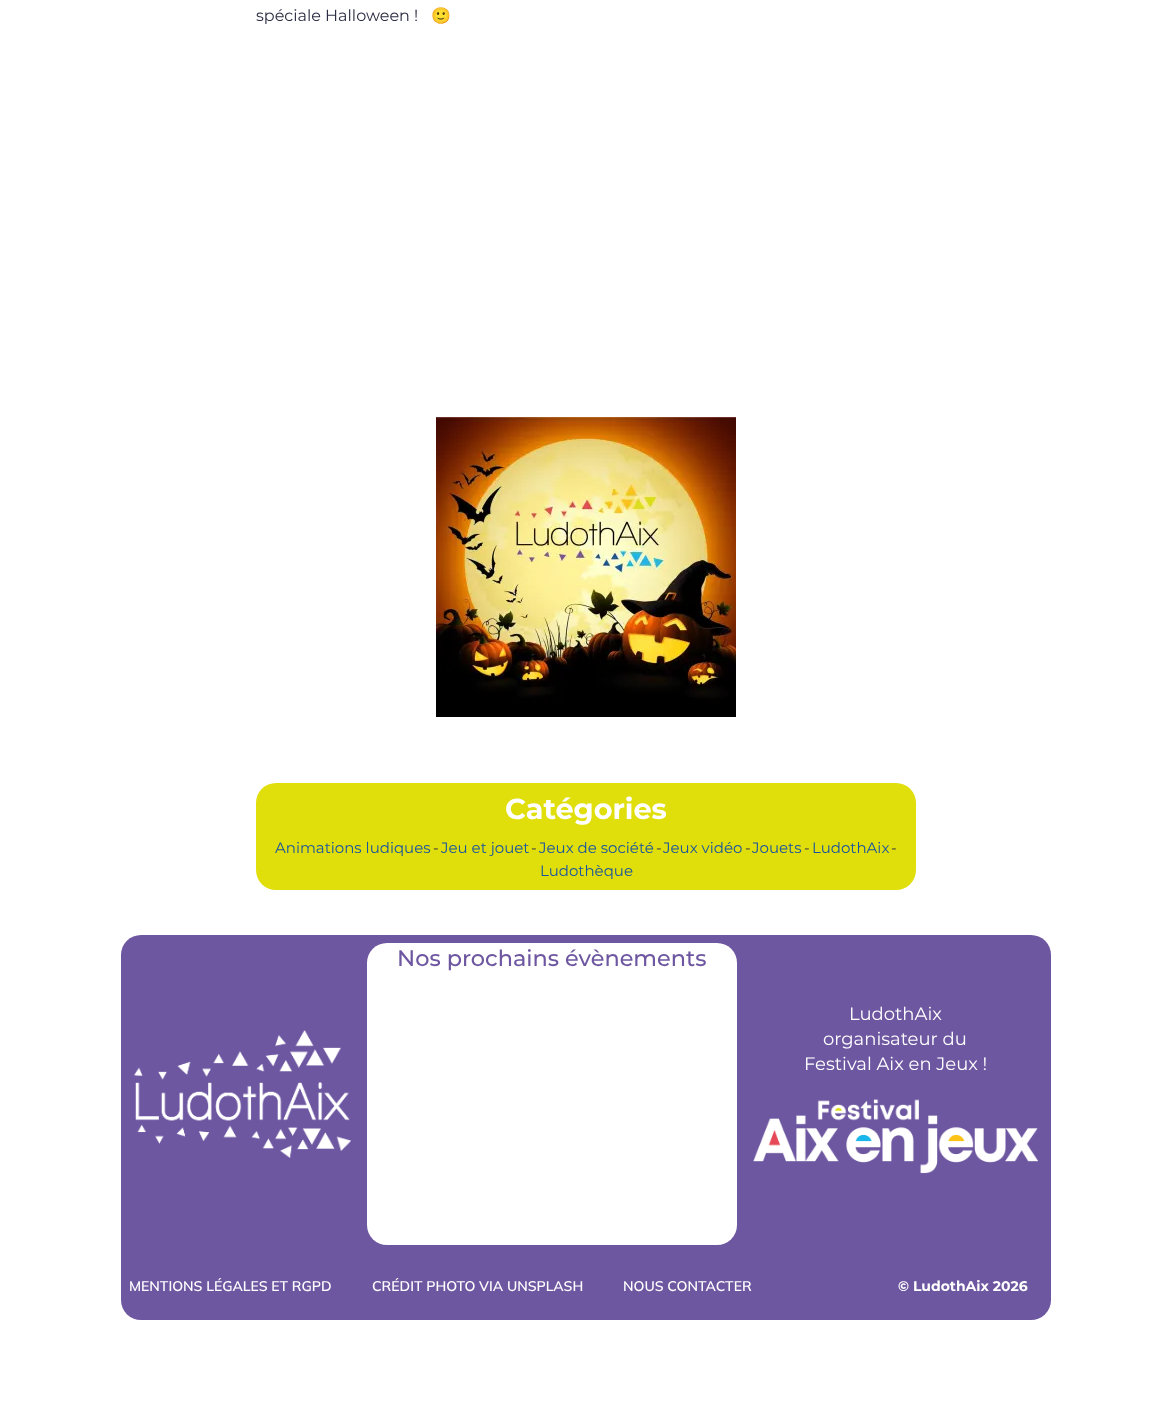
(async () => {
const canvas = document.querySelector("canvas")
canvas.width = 1172
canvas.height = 1409
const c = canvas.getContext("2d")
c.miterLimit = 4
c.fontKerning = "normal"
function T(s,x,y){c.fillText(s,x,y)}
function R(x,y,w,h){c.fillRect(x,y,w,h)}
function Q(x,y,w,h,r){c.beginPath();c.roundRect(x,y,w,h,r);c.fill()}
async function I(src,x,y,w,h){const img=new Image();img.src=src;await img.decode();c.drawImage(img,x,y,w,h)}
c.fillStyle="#fff"
R(0,0,1172,1409)
c.font="16px Montserrat"
c.fillStyle="#2b2d42"
T("spéciale Halloween !",256,21)
c.font="16px Noto Color Emoji"
T("🙂",431,21)
await I("1.png",436,417,300,300)
c.fillStyle="#e0de0b"
Q(256,783,660,107,20)
c.font="bold 28.75px Montserrat"
c.fillStyle="#fff"
T("Catégories",505,819)
c.font="15px Montserrat"
c.fillStyle="#1954a0"
T("Animations ludiques",275,853)
c.fillStyle="#2b2d42"
T("-",433,853)
c.fillStyle="#1954a0"
T("Jeu et jouet",441,853)
c.fillStyle="#2b2d42"
T("-",531,853)
c.fillStyle="#1954a0"
T("Jeux de société",539,853)
c.fillStyle="#2b2d42"
T("-",656,853)
c.fillStyle="#1954a0"
T("Jeux vidéo",663,853)
c.fillStyle="#2b2d42"
T("-",745,853)
c.fillStyle="#1954a0"
T("Jouets",752,853)
c.fillStyle="#2b2d42"
T("-",804,853)
c.fillStyle="#1954a0"
T("LudothAix",812,853)
c.fillStyle="#2b2d42"
T("-",891,853)
c.fillStyle="#1954a0"
T("Ludothèque",540,876)
c.fillStyle="#6e57a1"
Q(121,935,930,385,20)
c.fillStyle="#fff"
Q(367,943,370,302,20)
c.font="500 22.4px Montserrat"
c.fillStyle="#6e57a1"
T("Nos prochains évènements",397,966)
await I("2.png",134,1030,217,128)
c.font="18px Montserrat"
c.fillStyle="#fff"
T("LudothAix",849,1020)
T("organisateur du",823,1045)
T("Festival Aix en Jeux !",804,1070)
await I("3.png",753,1099,285,75)
c.font="600 14px Mulish"
T("MENTIONS LÉGALES ET RGPD",129,1291)
T("CRÉDIT PHOTO VIA UNSPLASH",372,1291)
T("NOUS CONTACTER",623,1291)
c.font="bold 14px Montserrat"
T("© LudothAix 2026",898,1291)
})()
